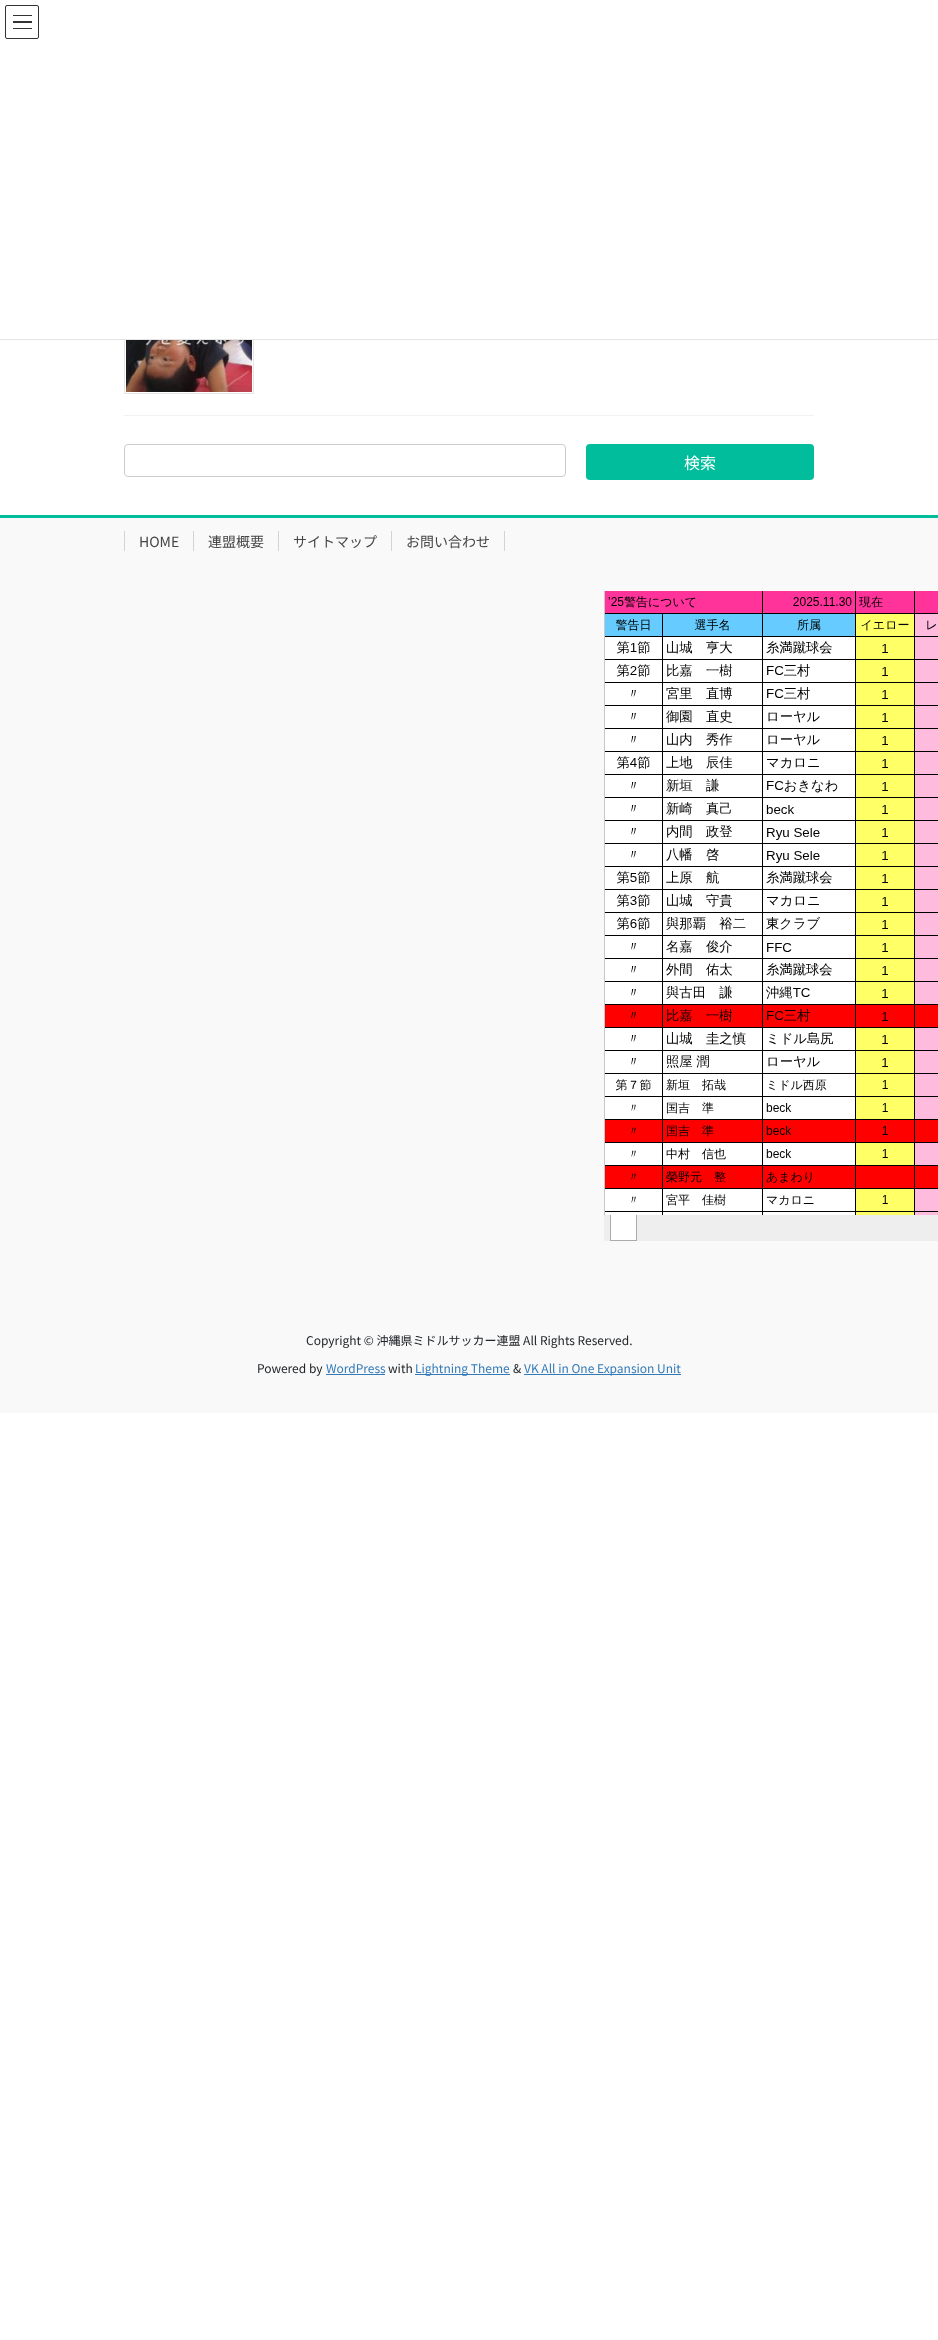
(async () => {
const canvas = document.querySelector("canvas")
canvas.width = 938
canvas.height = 2340
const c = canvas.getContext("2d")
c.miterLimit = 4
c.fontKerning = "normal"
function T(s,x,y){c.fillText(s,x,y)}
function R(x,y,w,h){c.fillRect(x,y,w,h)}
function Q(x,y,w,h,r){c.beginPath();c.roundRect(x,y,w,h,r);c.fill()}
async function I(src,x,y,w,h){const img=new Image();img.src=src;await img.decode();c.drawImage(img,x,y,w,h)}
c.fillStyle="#fff"
R(0,0,938,2340)
c.fillStyle="#333"
R(13,15,19,1)
R(13,21,19,2)
R(13,28,19,1)
c.beginPath()
c.roundRect(5.5,5.5,33,33,1.5)
c.strokeStyle="#333"
c.stroke()
c.strokeStyle="#e5e5e5"
c.strokeRect(124.5,264.5,129,129)
c.fillStyle="#fff"
R(124,264,130,75)
c.fillStyle="#e5e5e5"
R(0,339,938,1)
c.fillStyle="#f2f2f2"
R(124,415,690,1)
await I("1.png",126,340,126,52)
c.beginPath()
c.roundRect(124.5,444.5,441,32,3.5)
c.strokeStyle="#ccc"
c.stroke()
c.fillStyle="#02bd9c"
Q(586,444,228,36,4)
c.font="16px Noto Sans JP"
c.fillStyle="#fff"
T("検索",684,469)
c.fillStyle="#f9f9f9"
R(0,518,938,895)
c.fillStyle="#02bd9c"
R(0,515,938,3)
c.font="14px Noto Sans JP"
c.fillStyle="#464646"
T("HOME",139,547)
c.fillStyle="#d4d4d4"
R(124,531,1,20)
c.fillStyle="#464646"
T("連盟概要",208,547)
c.fillStyle="#d4d4d4"
R(193,531,1,20)
c.fillStyle="#464646"
T("サイトマップ",293,547)
c.fillStyle="#d4d4d4"
R(278,531,1,20)
c.fillStyle="#464646"
T("お問い合わせ",406,547)
c.fillStyle="#d4d4d4"
R(504,531,1,20)
R(391,531,1,20)
await I("2.png",604,591,334,650)
c.font="12px Noto Sans JP"
c.fillStyle="#212529"
T("Copyright © 沖縄県ミドルサッカー連盟 All Rights Reserved.",306,1345)
T("Powered by",257,1373)
c.fillStyle="#337ab7"
T("WordPress",326,1373)
R(326,1374,59,1)
c.fillStyle="#212529"
T("with",388,1373)
c.fillStyle="#337ab7"
R(415,1374,95,1)
T("Lightning Theme",415,1373)
c.fillStyle="#212529"
T("&",513,1373)
c.fillStyle="#337ab7"
R(524,1374,157,1)
T("VK All in One Expansion Unit",524,1373)
})()
